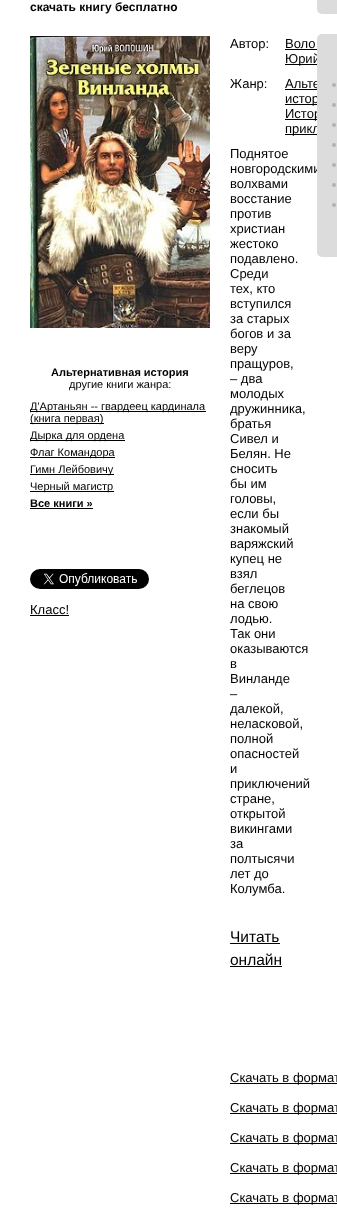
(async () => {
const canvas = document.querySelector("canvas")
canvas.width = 337
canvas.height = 1223
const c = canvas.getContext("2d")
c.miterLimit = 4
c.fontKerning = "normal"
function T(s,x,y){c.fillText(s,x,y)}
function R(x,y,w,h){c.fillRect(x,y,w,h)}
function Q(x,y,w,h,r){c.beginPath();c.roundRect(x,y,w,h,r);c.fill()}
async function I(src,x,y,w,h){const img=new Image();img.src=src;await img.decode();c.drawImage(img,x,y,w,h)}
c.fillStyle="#fff"
R(0,0,337,1223)
c.fillStyle="#dcdcdc"
Q(317,-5,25,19,5)
c.fillStyle="#000"
R(285,64,35,1)
c.font="13px Liberation Sans"
T("Юрий",285,63)
T("Альте",285,88)
R(285,104,32,1)
T("истор",285,103)
R(285,119,32,1)
T("Истор",285,118)
R(285,134,32,1)
T("прикл",285,133)
T("новгородскими",230,173)
c.fillStyle="#dcdcdc"
Q(317,34,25,223,5)
c.fillStyle="#b3b3b3"
c.beginPath()
c.arc(334,85,2,0,7)
c.fill()
c.beginPath()
c.arc(334,105,2,0,7)
c.fill()
c.beginPath()
c.arc(334,125,2,0,7)
c.fill()
c.beginPath()
c.arc(334,145,2,0,7)
c.fill()
c.beginPath()
c.arc(334,165,2,0,7)
c.fill()
c.beginPath()
c.arc(334,185,2,0,7)
c.fill()
c.beginPath()
c.arc(334,205,2,0,7)
c.fill()
c.font="bold 12px Liberation Sans"
c.fillStyle="#000"
T("скачать книгу бесплатно",30,11)
await I("1.png",30,36,180,292)
c.font="bold 11px Liberation Sans"
T("Альтернативная история",51,376)
c.font="11px Liberation Sans"
T("другие книги жанра:",69,388)
R(30,411,176,1)
T("Д'Артаньян -- гвардеец кардинала",30,410)
R(30,423,74,1)
T("(книга первая)",30,422)
R(30,440,95,1)
T("Дырка для ордена",30,439)
R(30,457,85,1)
T("Флаг Командора",30,456)
R(30,474,84,1)
T("Гимн Лейбовичу",30,473)
R(30,491,84,1)
T("Черный магистр",30,490)
c.font="bold 11px Liberation Sans"
T("Все книги »",30,507)
R(30,508,63,1)
await I("2.png",30,569,119,20)
c.font="13px Liberation Sans"
T("Класс!",30,614)
R(30,615,39,1)
T("Автор:",230,48)
T("Воло",285,48)
R(285,49,32,1)
T("Жанр:",230,88)
R(285,89,32,1)
T("Поднятое",230,158)
T("волхвами",230,188)
T("восстание",230,203)
T("против",230,218)
T("христиан",230,233)
T("жестоко",230,248)
T("подавлено.",230,263)
T("Среди",230,278)
T("тех, кто",230,293)
T("вступился",230,308)
T("за старых",230,323)
T("богов и за",230,338)
T("веру",230,353)
T("пращуров,",230,368)
T("– два",230,383)
T("молодых",230,398)
T("дружинника,",230,413)
T("братья",230,428)
T("Сивел и",230,443)
T("Белян. Не",230,458)
T("сносить",230,473)
T("бы им",230,488)
T("головы,",230,503)
T("если бы",230,518)
T("знакомый",230,533)
T("варяжский",230,548)
T("купец не",230,563)
T("взял",230,578)
T("беглецов",230,593)
T("на свою",230,608)
T("лодью.",230,623)
T("Так они",230,638)
T("оказываются",230,653)
T("в",230,668)
T("Винланде",230,683)
T("–",230,698)
T("далекой,",230,713)
T("неласковой,",230,728)
T("полной",230,743)
T("опасностей",230,758)
T("и",230,773)
T("приключений",230,788)
T("стране,",230,803)
T("открытой",230,818)
T("викингами",230,833)
T("за",230,848)
T("полтысячи",230,863)
T("лет до",230,878)
T("Колумба.",230,893)
c.font="15.5px Liberation Sans"
T("Читать",230,942)
R(230,943,50,1)
T("онлайн",230,965)
R(230,966,52,1)
R(230,1083,107,1)
c.font="13px Liberation Sans"
T("Скачать в формат",230,1082)
R(230,1113,107,1)
T("Скачать в формат",230,1112)
R(230,1143,107,1)
T("Скачать в формат",230,1142)
R(230,1173,107,1)
T("Скачать в формат",230,1172)
R(230,1203,107,1)
T("Скачать в формат",230,1202)
})()
